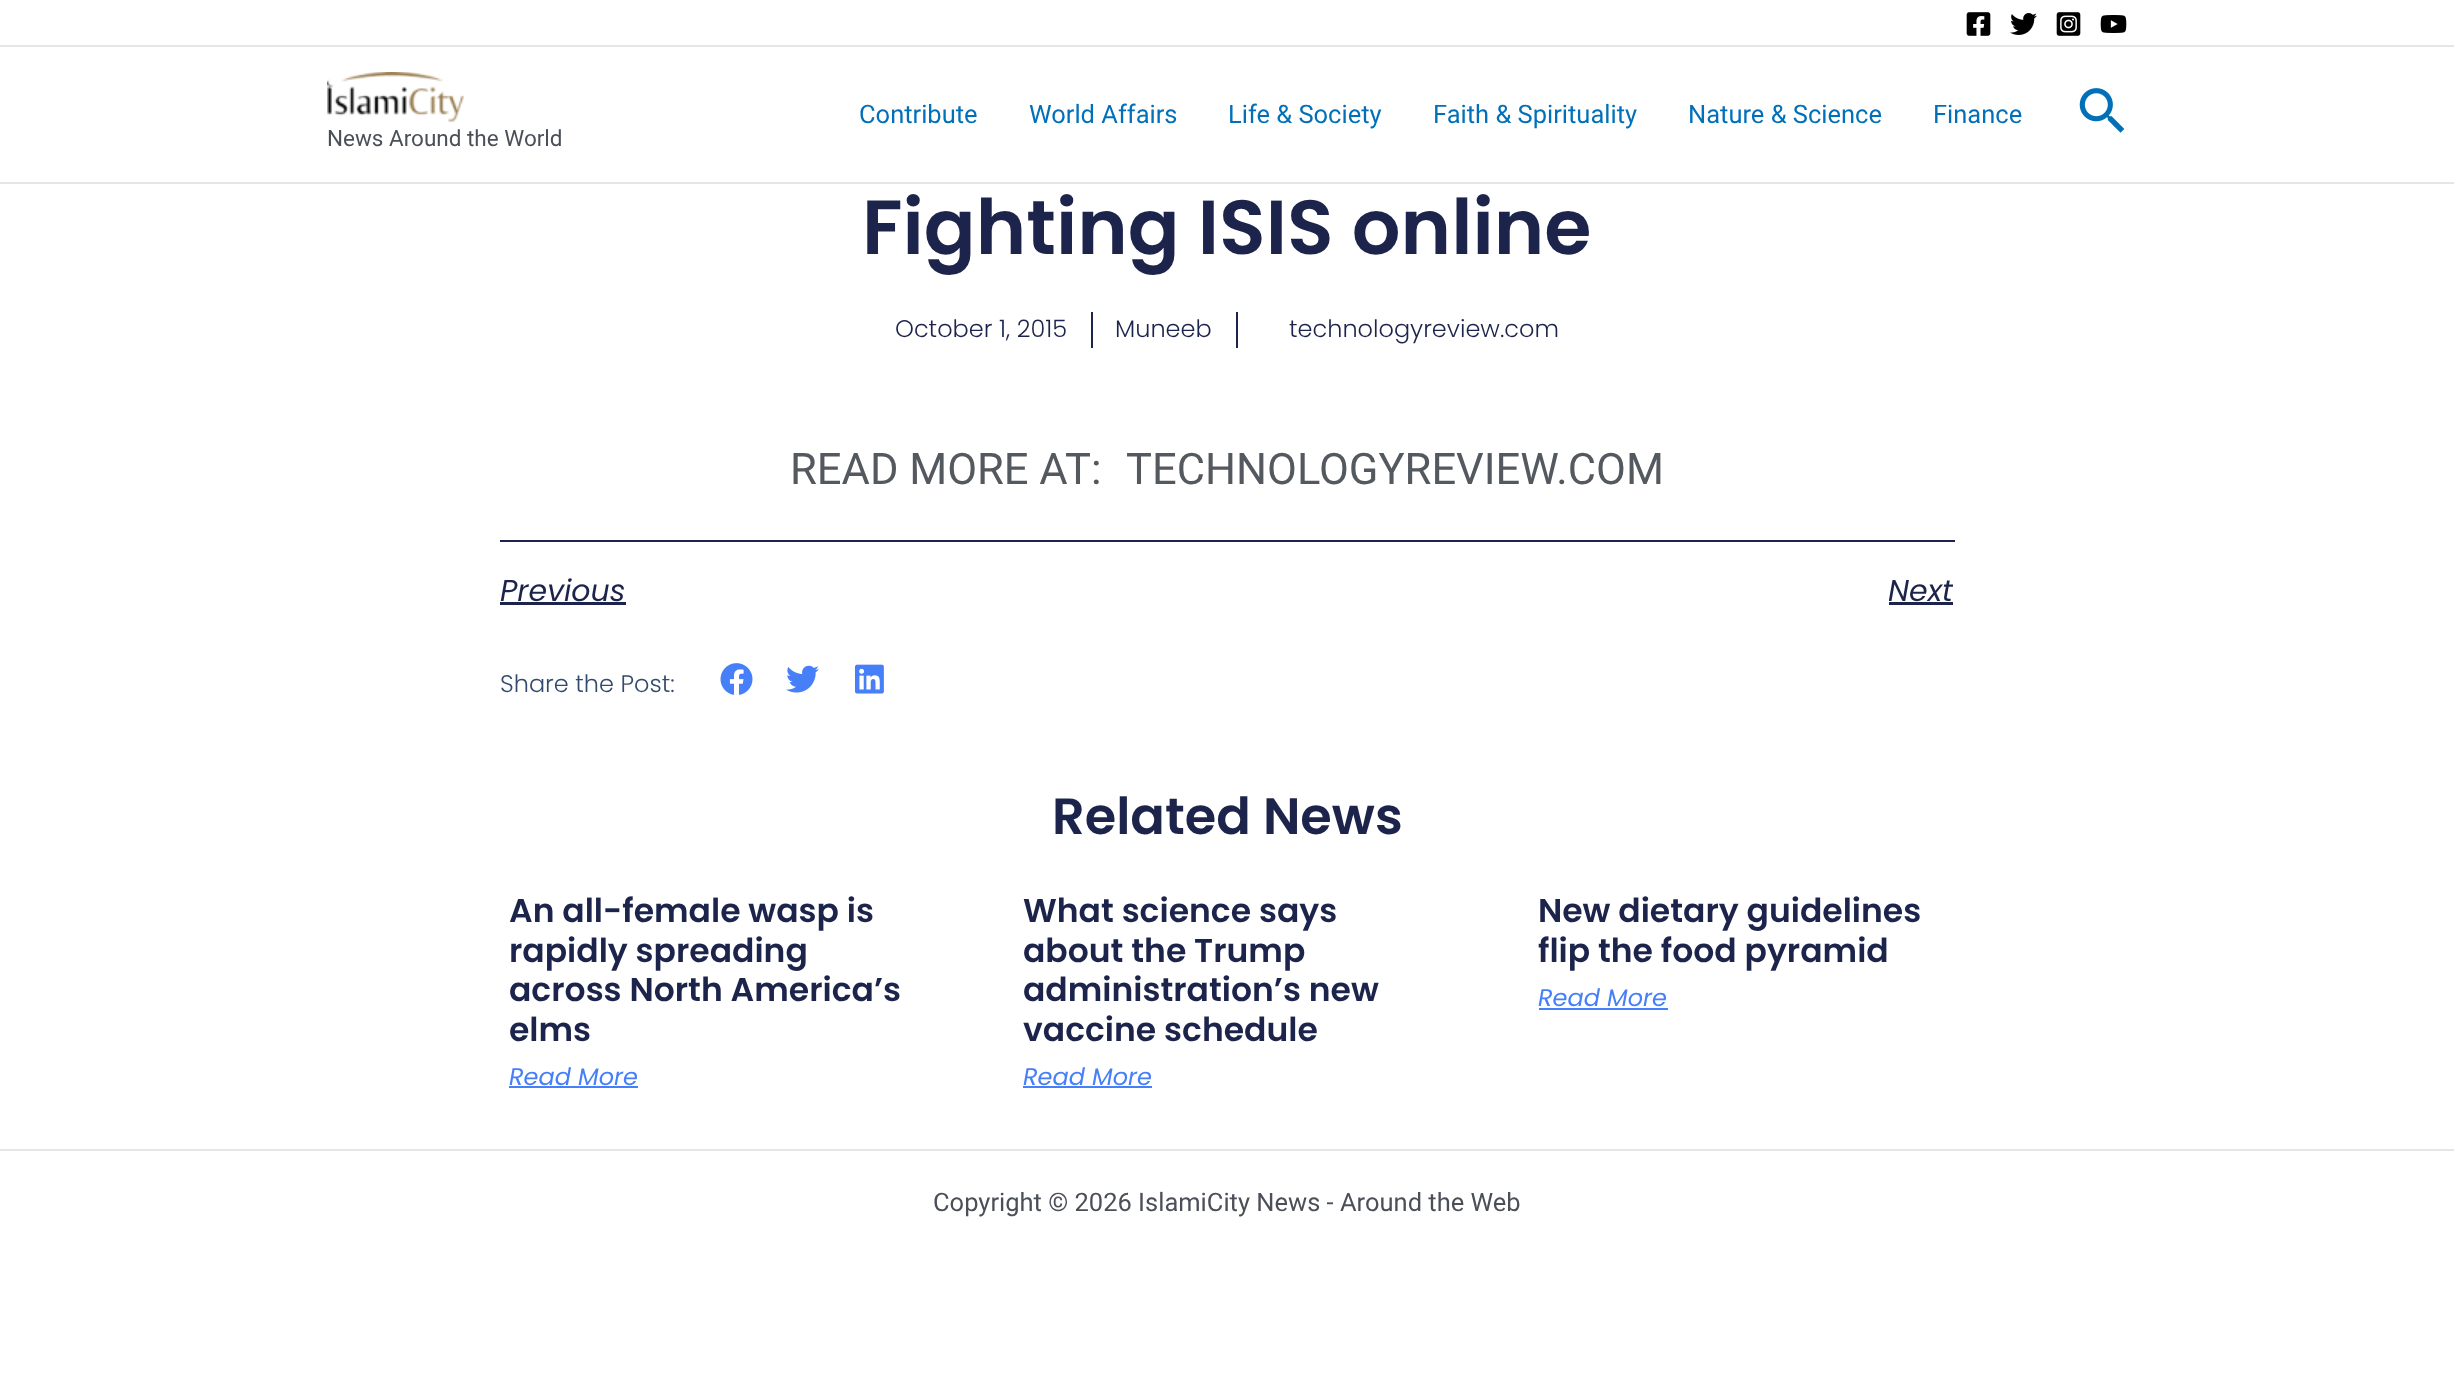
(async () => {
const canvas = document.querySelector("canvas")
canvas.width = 2454
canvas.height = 1379
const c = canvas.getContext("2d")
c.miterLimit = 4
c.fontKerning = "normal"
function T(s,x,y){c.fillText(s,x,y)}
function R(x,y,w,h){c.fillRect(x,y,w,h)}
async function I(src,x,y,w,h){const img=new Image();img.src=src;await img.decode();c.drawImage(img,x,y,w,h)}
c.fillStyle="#fff"
R(0,0,2454,1379)
c.fillStyle="#e5e5e5"
R(0,45,2454,2)
await I("1.png",1966,12,25,24)
await I("2.png",2010,13,27,22)
await I("3.png",2056,12,25,24)
await I("4.png",2100,15,27,18)
R(0,182,2454,2)
c.font="25.5px Roboto"
c.fillStyle="#0170b9"
T("Contribute",859,123)
T("World Affairs",1029,123)
T("Life & Society",1228,123)
T("Faith & Spirituality",1433,123)
T("Nature & Science",1688,123)
T("Finance",1933,123)
await I("5.png",2079,88,45,45)
await I("6.png",327,72,137,50)
c.font="22.5px Roboto"
c.fillStyle="#4b4f58"
T("News Around the World",327,146)
c.font="600 76.5px Poppins"
c.fillStyle="#1c244b"
T("Fighting ISIS online",862,254)
c.font="300 24px Poppins"
T("October 1, 2015",895,337)
R(1091,312,2,36)
T("Muneeb",1115,337)
R(1236,312,2,36)
T("technologyreview.com",1289,337)
c.font="43.5px Roboto"
c.fillStyle="#54595f"
T("READ MORE AT:",790,484)
T("TECHNOLOGYREVIEW.COM",1126,484)
c.fillStyle="#1c244b"
R(500,540,1455,2)
c.font="italic 30px Poppins"
T("Previous",500,601)
R(500,602,126,3)
c.save()
c.beginPath()
c.rect(1889,569,64,43)
c.clip()
T("Next",1888,601)
c.restore()
R(1889,602,64,3)
c.font="300 24px Poppins"
c.fillStyle="#324a6d"
T("Share the Post:",500,692)
await I("7.png",720,663,33,32)
await I("8.png",786,665,33,28)
await I("9.png",855,664,29,30)
c.font="600 51px Poppins"
c.fillStyle="#1c244b"
T("Related News",1052,834)
c.font="600 33px Poppins"
T("An all-female wasp is",509,922)
T("rapidly spreading",509,962)
T("across North America’s",509,1001)
T("elms",509,1041)
c.font="italic 24px Poppins"
c.fillStyle="#467ff7"
T("Read More",509,1085)
R(509,1086,129,2)
c.font="600 33px Poppins"
c.fillStyle="#1c244b"
T("What science says",1023,922)
T("about the Trump",1023,962)
T("administration’s new",1023,1001)
T("vaccine schedule",1023,1041)
c.font="italic 24px Poppins"
c.fillStyle="#467ff7"
T("Read More",1023,1085)
R(1023,1086,129,2)
c.font="600 33px Poppins"
c.fillStyle="#1c244b"
T("New dietary guidelines",1538,922)
T("flip the food pyramid",1538,962)
c.font="italic 24px Poppins"
c.fillStyle="#467ff7"
T("Read More",1538,1006)
R(1539,1008,129,2)
c.fillStyle="#e5e5e5"
R(0,1149,2454,2)
c.font="25.5px Roboto"
c.fillStyle="#4b4f58"
T("Copyright © 2026 IslamiCity News - Around the Web",933,1211)
})()
